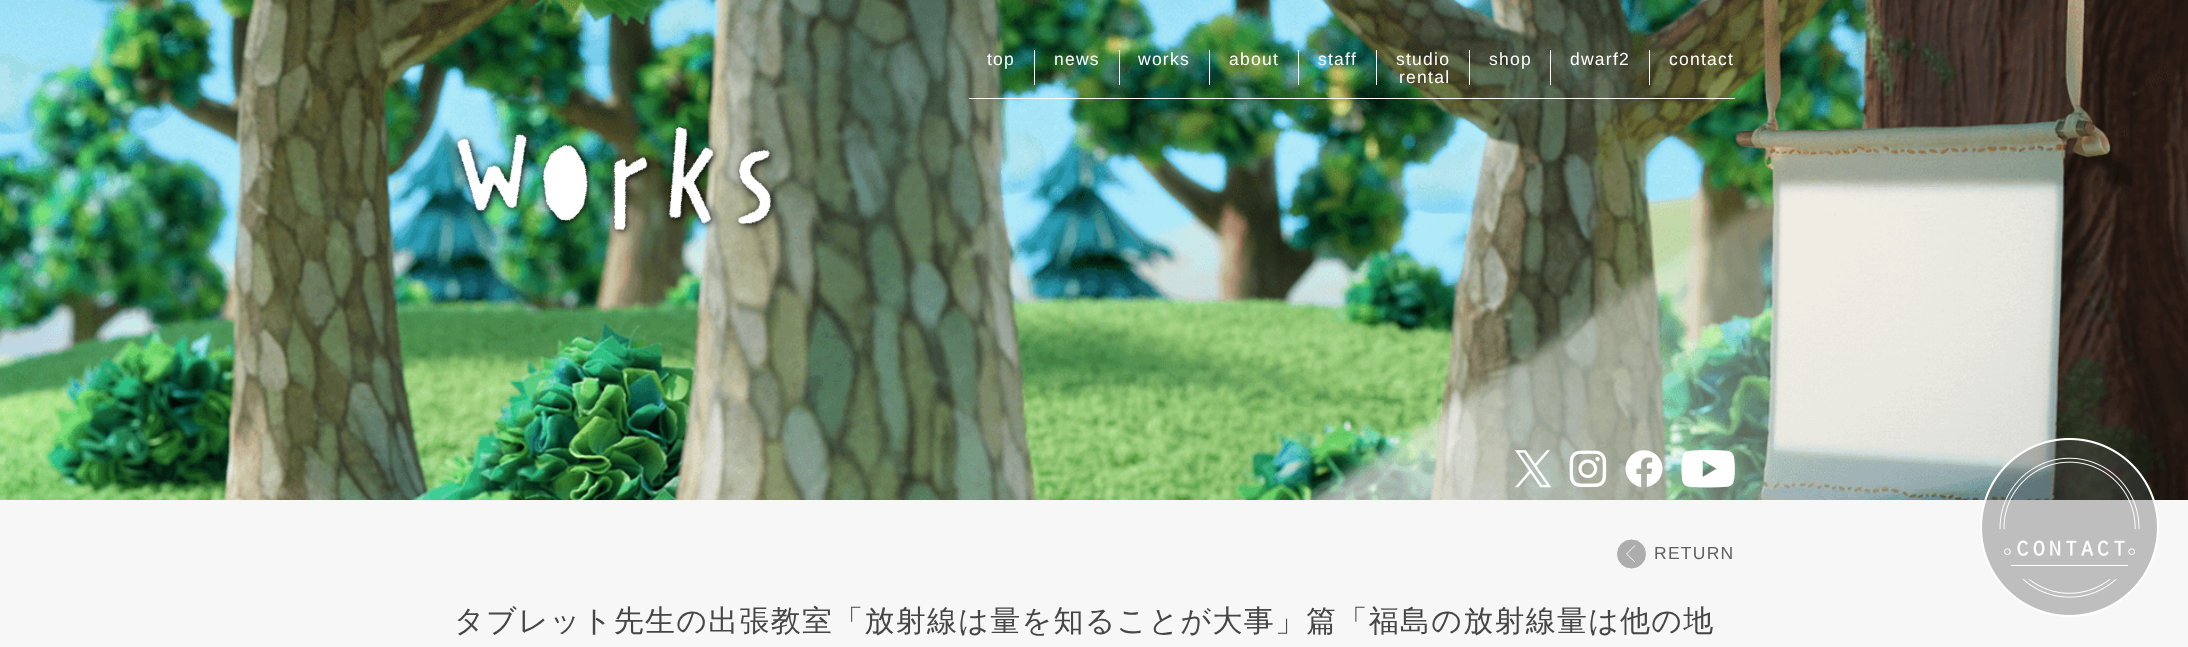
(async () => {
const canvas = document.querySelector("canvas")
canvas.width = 2188
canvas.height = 647
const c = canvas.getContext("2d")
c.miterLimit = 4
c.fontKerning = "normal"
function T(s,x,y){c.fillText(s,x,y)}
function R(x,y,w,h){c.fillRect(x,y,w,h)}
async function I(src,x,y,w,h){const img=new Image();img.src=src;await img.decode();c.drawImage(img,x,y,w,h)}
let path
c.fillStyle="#f7f7f7"
R(0,0,2188,647)
await I("1.png",0,0,2188,500)
c.fillStyle="#fff"
R(969,98,766,1)
R(1034,50,1,35)
c.letterSpacing="1.25px"
c.font="17.5px Liberation Sans"
T("top",987,65)
R(1119,50,1,35)
T("news",1054,65)
R(1209,50,1,35)
T("works",1138,65)
R(1298,50,1,35)
T("about",1229,65)
R(1376,50,1,35)
T("staff",1318,65)
R(1469,50,1,35)
T("studio",1396,65)
T("rental",1399,83)
R(1550,50,1,35)
T("shop",1489,65)
R(1649,50,1,35)
T("dwarf2",1570,65)
T("contact",1669,65)
await I("2.png",453,123,325,114)
await I("3.png",1515,450,36,38)
await I("4.png",1569,450,38,38)
await I("5.png",1625,450,38,37)
await I("6.png",1681,450,54,38)
c.fillStyle="#aeadad"
c.beginPath()
c.arc(1631.5,554,15,0,7)
c.fill()
path = new Path2D("M1635 562l-8.5-8l8.5-8.5")
c.strokeStyle="#fff"
c.lineWidth=0.9
c.stroke(path)
c.save()
c.beginPath()
c.rect(1616,538,32,31)
c.clip()
c.beginPath()
c.arc(1631.5,554,15,0,7)
c.stroke()
c.restore()
c.fillStyle="#5f5f5f"
T("RETURN",1654,559)
c.font="500 30px WenQuanYi Zen Hei"
c.fillStyle="#464646"
T("タブレット先生の出張教室「放射線は量を知ることが大事」篇「福島の放射線量は他の地",454,631)
await I("7.png",1980,437,179,180)
})()
